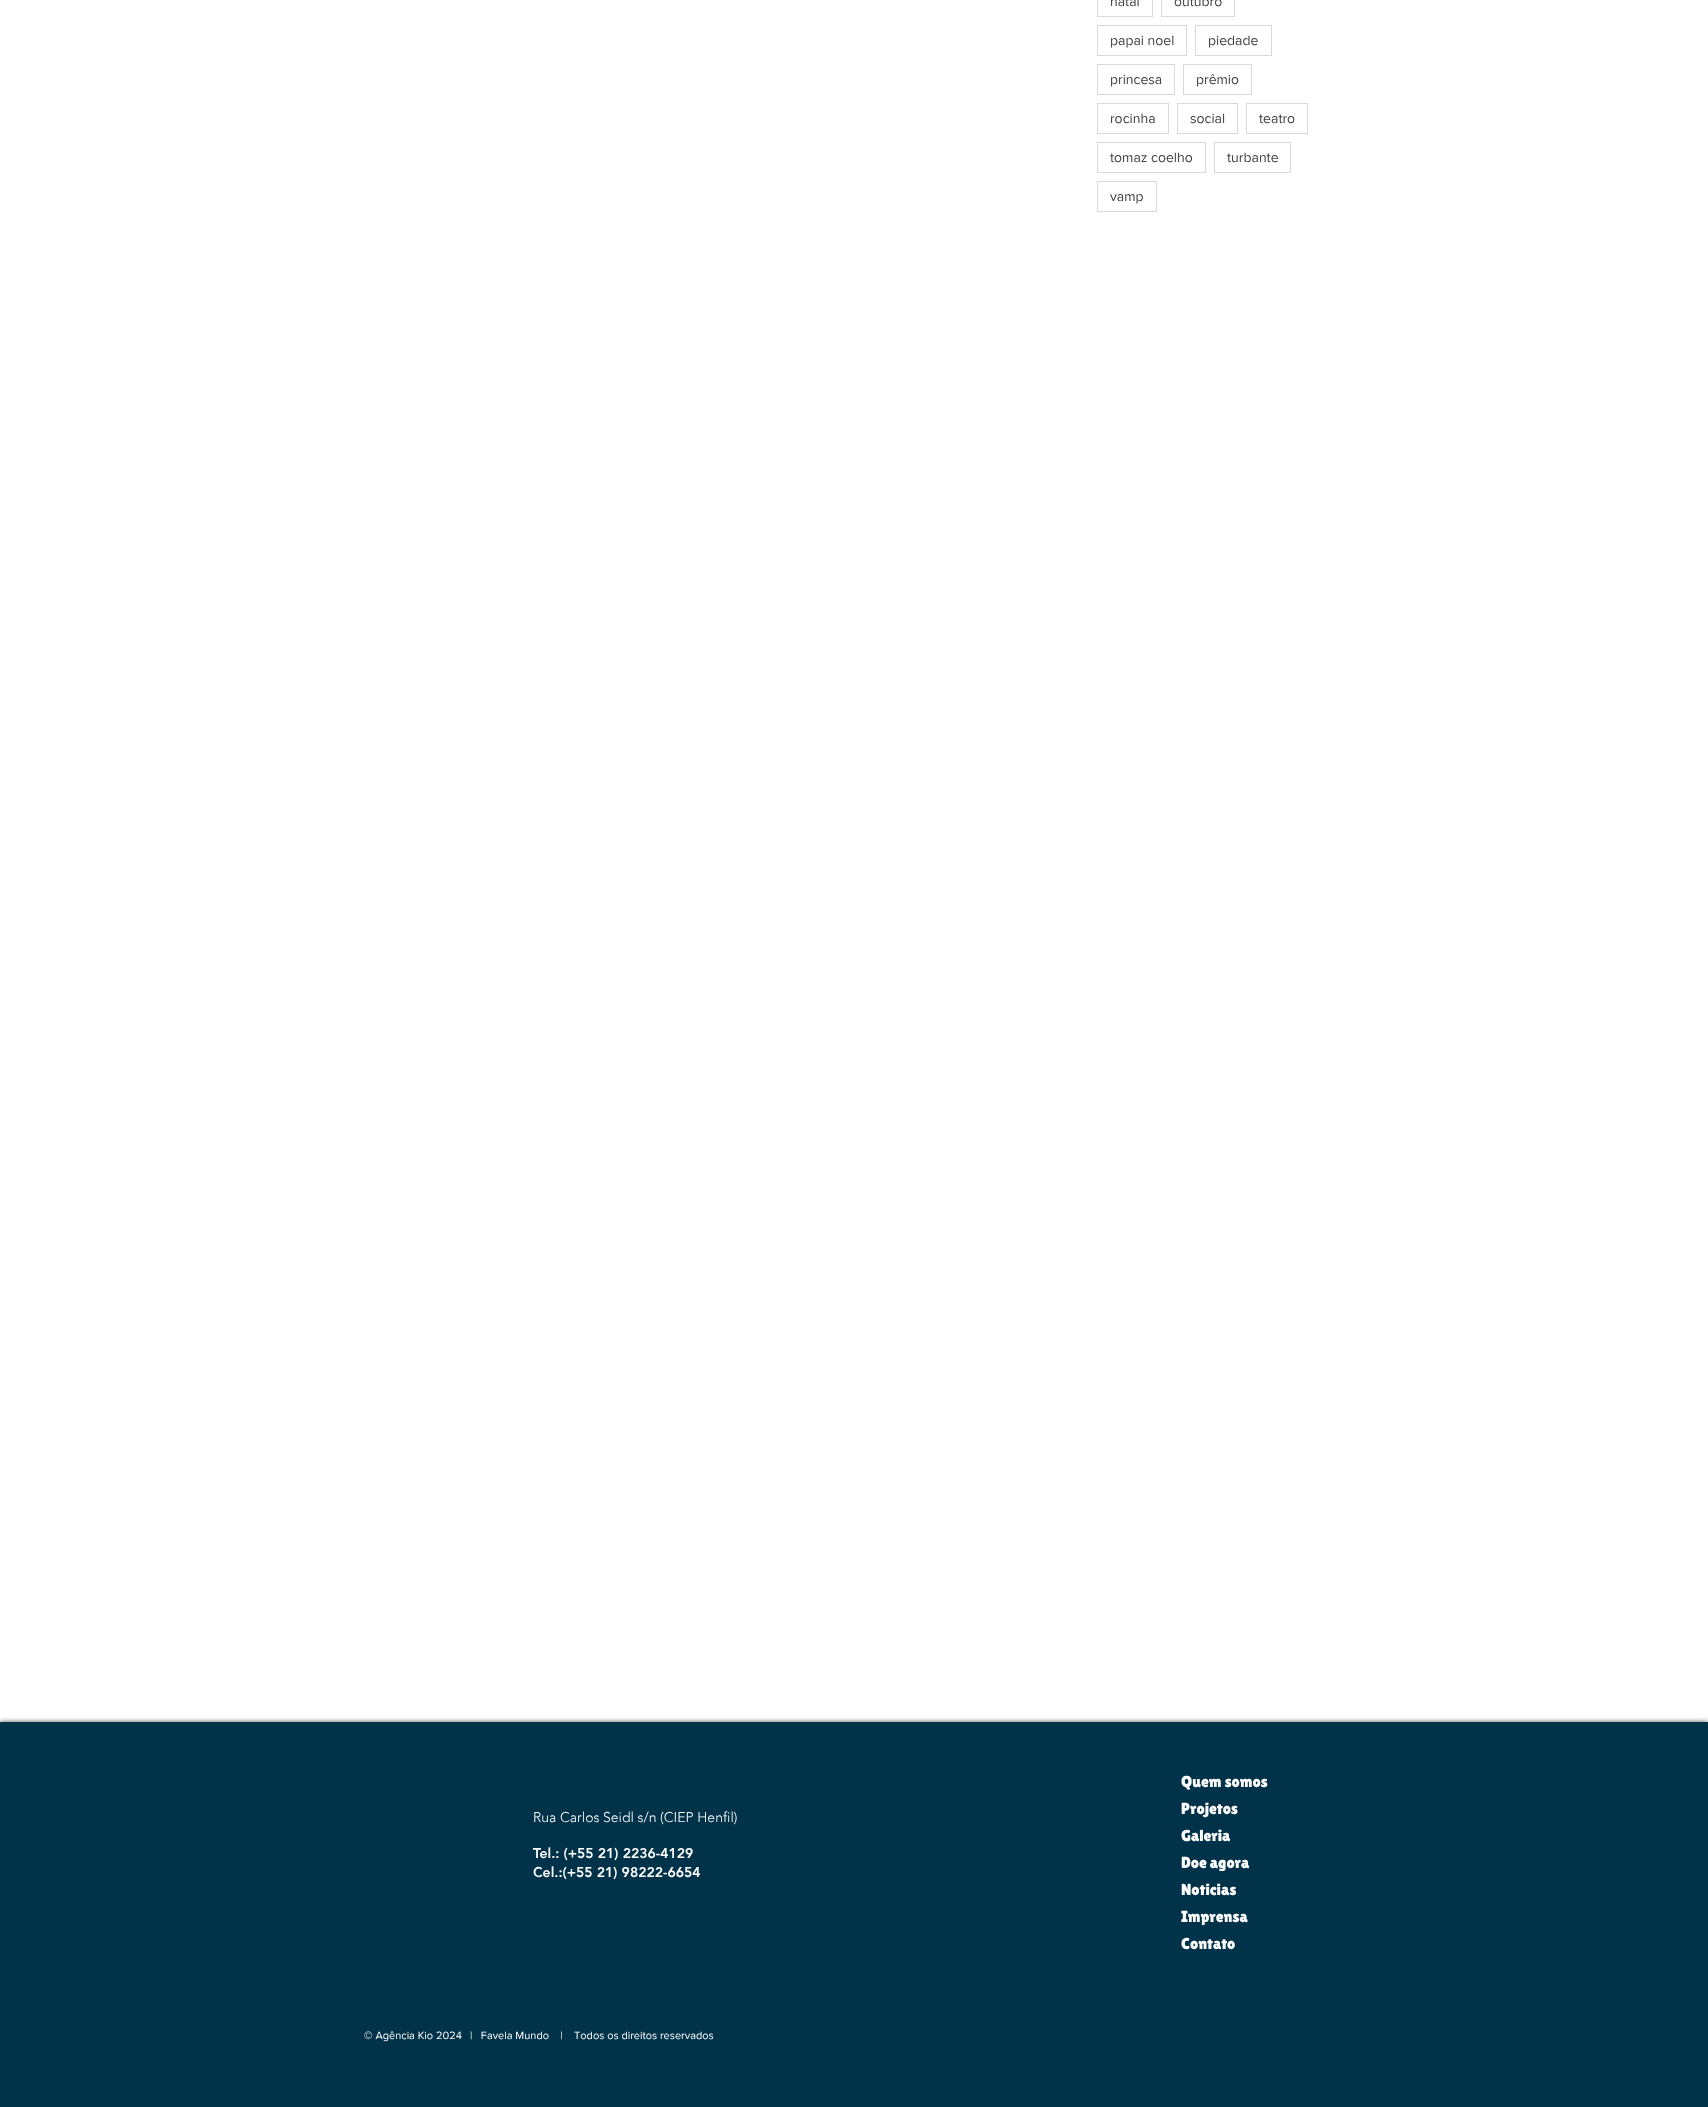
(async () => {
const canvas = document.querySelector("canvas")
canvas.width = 1708
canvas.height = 2107
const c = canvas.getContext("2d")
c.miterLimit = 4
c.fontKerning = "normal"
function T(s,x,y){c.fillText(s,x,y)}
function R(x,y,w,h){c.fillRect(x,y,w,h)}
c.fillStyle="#fff"
R(0,0,1708,2107)
c.strokeStyle="#d9d9d9"
c.strokeRect(1097.5,-.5,55,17)
c.font="14px 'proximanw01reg'"
c.fillStyle="#414141"
T("natal",1110,6)
c.strokeRect(1161.5,-.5,73,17)
T("outubro",1174,6)
c.strokeRect(1097.5,25.5,89,30)
T("papai noel",1110,45)
c.strokeRect(1195.5,25.5,76,30)
T("piedade",1208,45)
c.strokeRect(1097.5,64.5,77,30)
T("princesa",1110,84)
c.strokeRect(1183.5,64.5,68,30)
T("prêmio",1196,84)
c.strokeRect(1097.5,103.5,71,30)
T("rocinha",1110,123)
c.strokeRect(1177.5,103.5,60,30)
T("social",1190,123)
c.strokeRect(1246.5,103.5,61,30)
T("teatro",1259,123)
c.strokeRect(1097.5,142.5,108,30)
T("tomaz coelho",1110,162)
c.strokeRect(1214.5,142.5,76,30)
T("turbante",1227,162)
c.strokeRect(1097.5,181.5,59,30)
T("vamp",1110,201)
c.fillStyle="#000000b3"
c.filter="blur(2.5px)"
c.beginPath()
c.rect(0,1722,1708,385)
c.fill()
c.filter="none"
c.fillStyle="#003249"
R(0,1722,1708,385)
c.font="300 14px 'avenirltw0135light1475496'"
c.fillStyle="#fff"
T("Rua Carlos Seidl s/n (CIEP Henfil)",533,1822)
c.font="900 14px 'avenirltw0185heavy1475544'"
T("Tel.: (+55 21) 2236-4129",533,1858)
T("Cel.:(+55 21) 98222-6654",533,1877)
c.font="16px Lilita One"
T("Quem somos",1181,1787)
T("Projetos",1181,1814)
T("Galeria",1181,1841)
T("Doe agora",1181,1868)
T("Noticias",1181,1895)
T("Imprensa",1181,1922)
T("Contato",1181,1949)
c.font="11px 'proximanw01reg'"
T("© Agência Kio 2024",364,2039)
T("|   Favela Mundo    |    Todos os direitos reservados",470,2039)
})()
